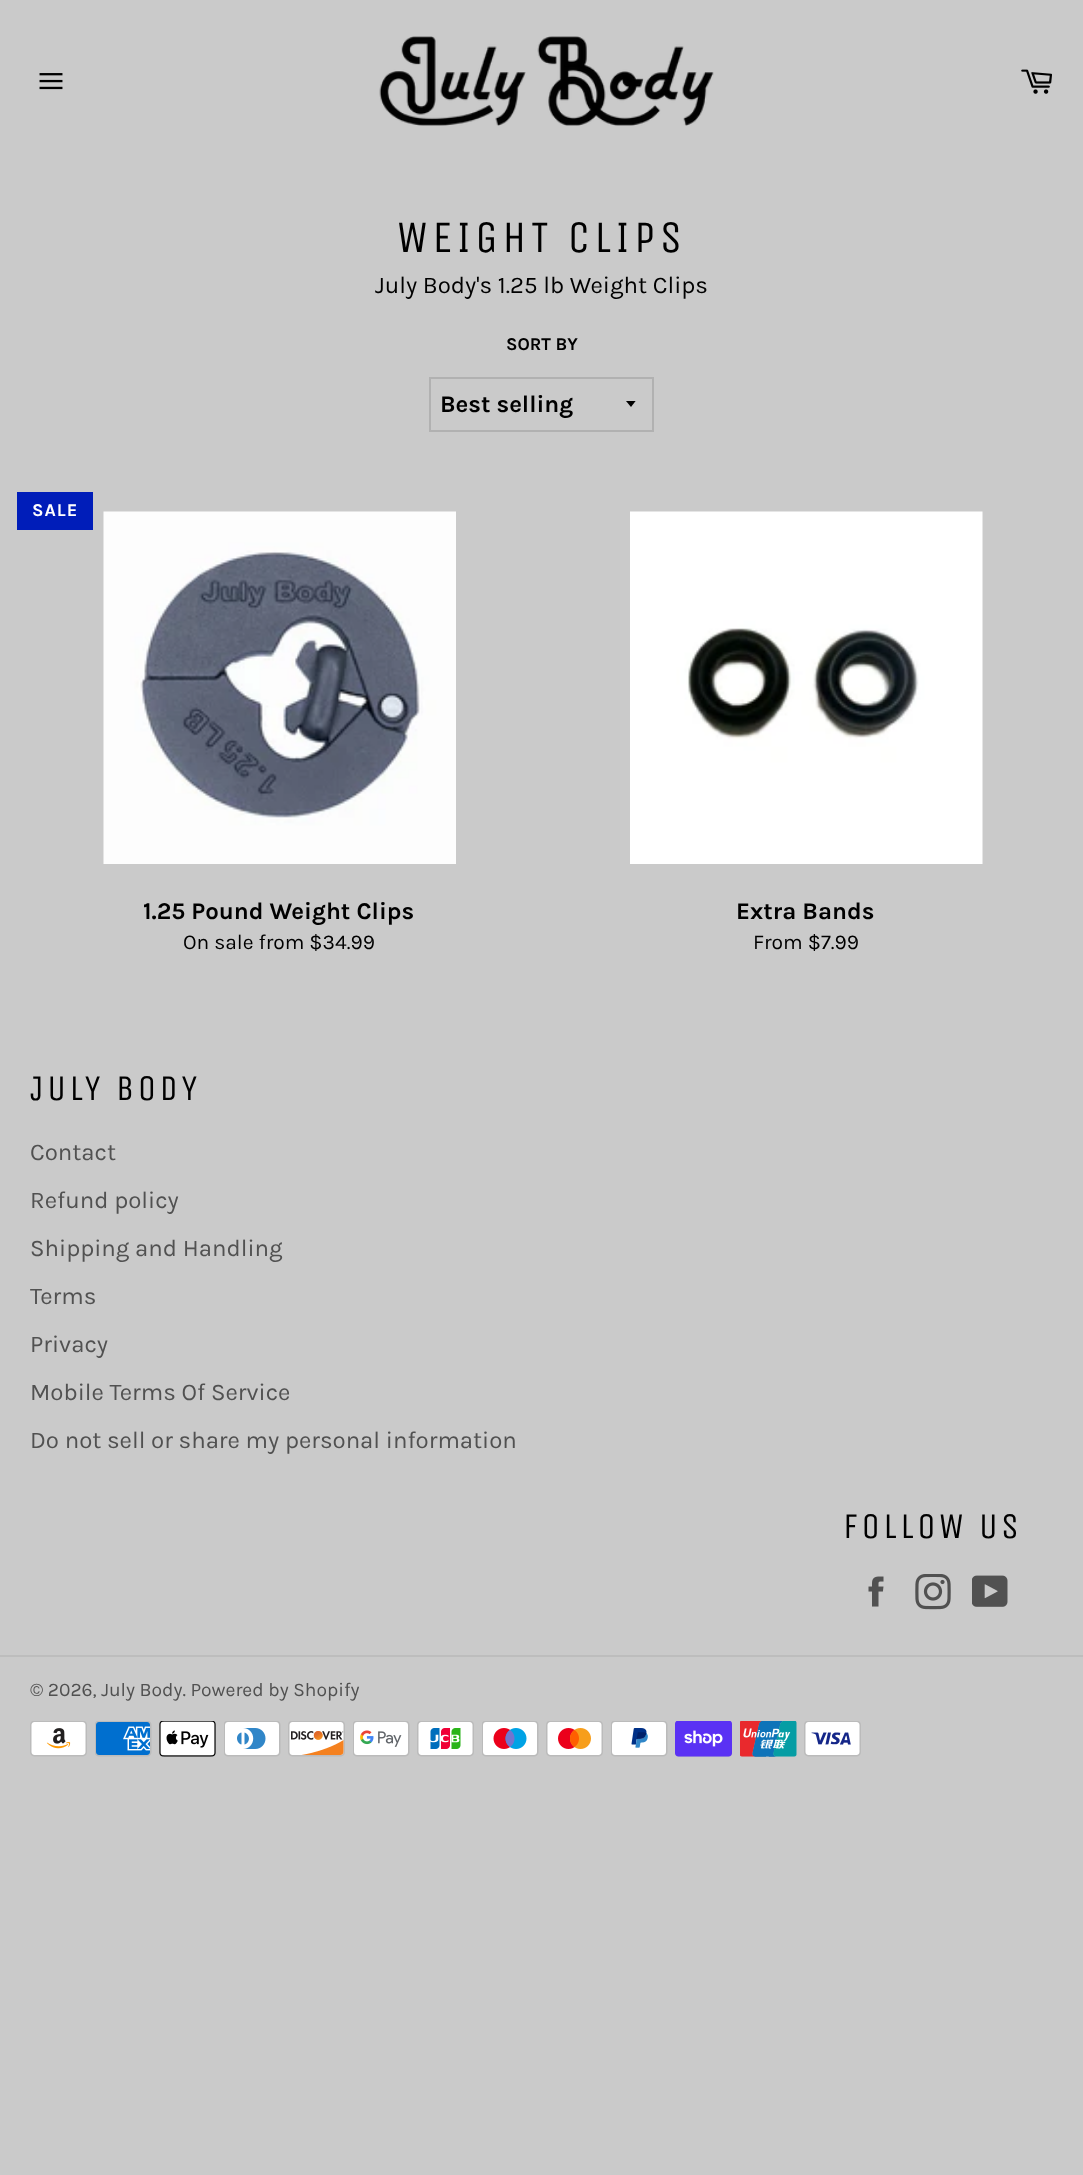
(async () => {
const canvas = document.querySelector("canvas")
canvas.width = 1083
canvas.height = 2175
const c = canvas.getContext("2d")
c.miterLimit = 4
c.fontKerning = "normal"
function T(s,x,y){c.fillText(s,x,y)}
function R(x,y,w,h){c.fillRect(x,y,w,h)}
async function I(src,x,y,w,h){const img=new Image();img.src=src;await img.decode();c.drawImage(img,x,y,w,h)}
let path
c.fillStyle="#cacaca"
R(0,0,1083,2175)
await I("1.png",39,73,24,17)
await I("2.png",379,36,335,90)
await I("3.png",1021,69,31,25)
c.letterSpacing="4.5px"
c.font="45px Unica One"
c.fillStyle="#000"
T("WEIGHT CLIPS",397,252)
c.letterSpacing="0px"
c.font="24px Karla"
T("July Body's 1.25 lb Weight Clips",375,293)
c.font="bold 18px Karla"
T("SORT BY",506,350)
c.save()
c.beginPath()
c.rect(626,401,12,7)
c.clip()
path = new Path2D("M625.5 400.5l5.5 6.5l5-6.5z")
c.fill(path)
c.restore()
c.strokeStyle="#b1b1b1"
c.lineWidth=2
c.strokeRect(430,378,223,53)
c.font="bold 24px Karla"
T("Best selling",440,412)
c.fillStyle="#001db9"
R(17,492,76,38)
c.letterSpacing="1px"
c.font="bold 18px Karla"
c.fillStyle="#fff"
T("SALE",32,516)
await I("4.png",103,511,353,353)
c.letterSpacing="0px"
c.font="bold 24px Karla"
c.fillStyle="#000"
T("1.25 Pound Weight Clips",143,919)
c.font="21px Karla"
T("On sale from $34.99",183,949)
await I("5.png",630,511,353,353)
c.font="bold 24px Karla"
T("Extra Bands",736,919)
c.font="21px Karla"
T("From $7.99",753,949)
c.letterSpacing="3.5px"
c.font="36px Unica One"
T("JULY BODY",30,1100)
c.letterSpacing="0px"
c.font="24px Karla"
c.fillStyle="#515151"
T("Contact",30,1160)
T("Refund policy",30,1208)
T("Shipping and Handling",30,1256)
T("Terms",30,1304)
T("Privacy",30,1352)
T("Mobile Terms Of Service",30,1400)
T("Do not sell or share my personal information",30,1448)
c.letterSpacing="3.5px"
c.font="36px Unica One"
c.fillStyle="#000"
T("FOLLOW US",843,1538)
await I("6.png",868,1576,16,31)
await I("7.png",915,1574,36,36)
await I("8.png",972,1575,36,32)
c.fillStyle="#bdbdbd"
R(0,1655,1083,2)
c.letterSpacing="0px"
c.font="19.25px Karla"
c.fillStyle="#515151"
T("© 2026, July Body. Powered by Shopify",30,1696)
await I("9.png",30,1721,57,36)
await I("10.png",95,1721,57,36)
await I("11.png",159,1721,57,36)
await I("12.png",224,1721,57,36)
await I("13.png",288,1721,57,36)
await I("14.png",353,1721,57,36)
await I("15.png",417,1721,57,36)
await I("16.png",482,1721,57,36)
await I("17.png",546,1721,57,36)
await I("18.png",611,1721,57,36)
await I("19.png",675,1721,57,36)
await I("20.png",740,1721,57,36)
await I("21.png",804,1721,57,36)
})()
